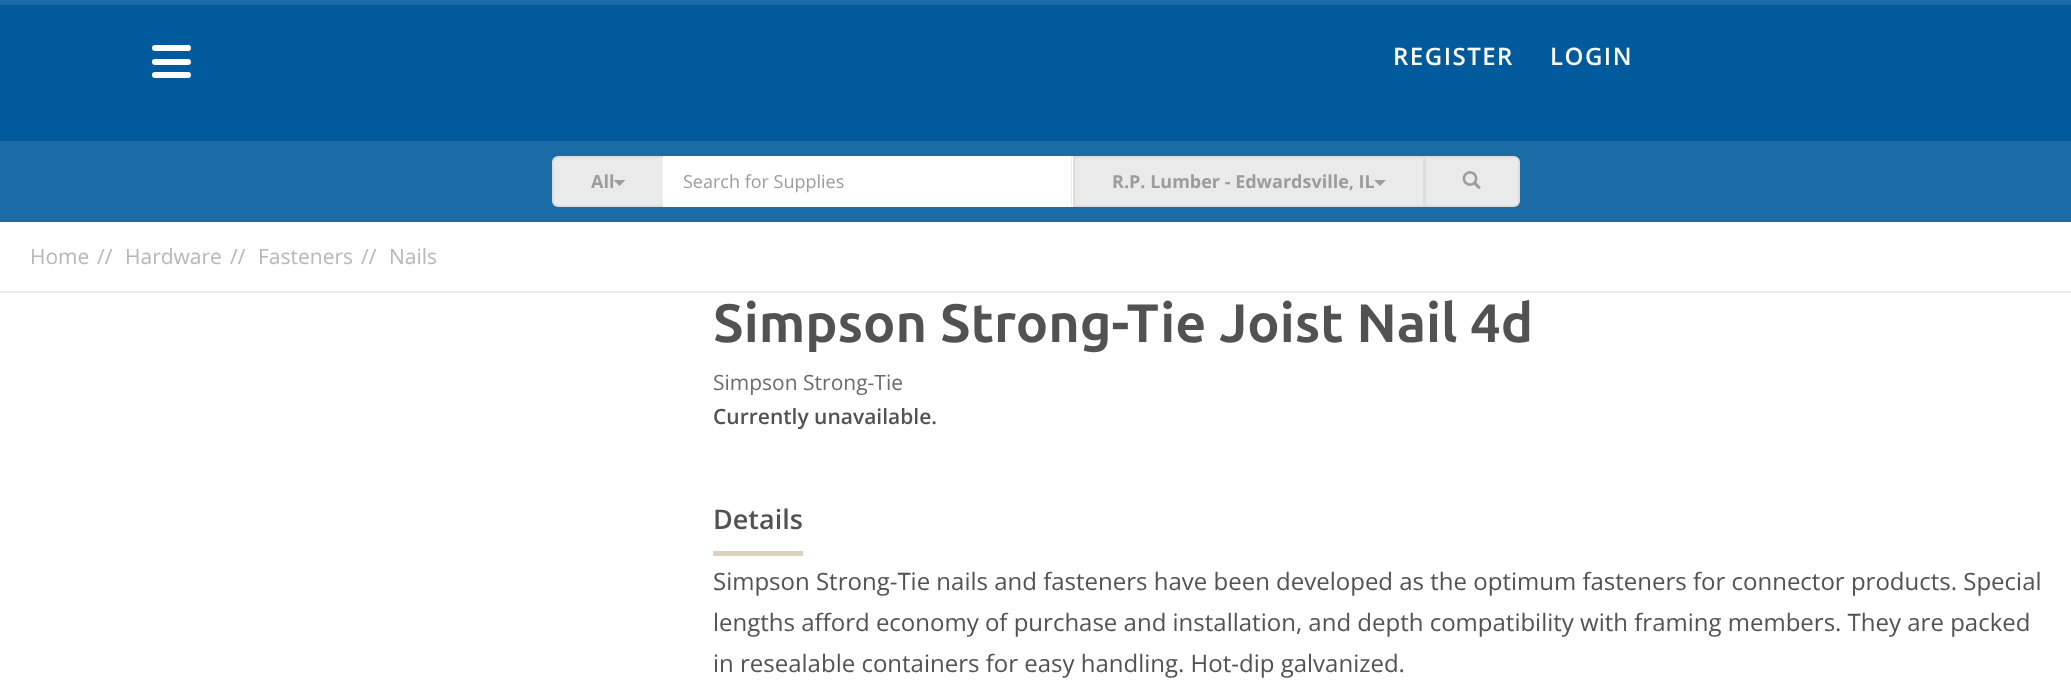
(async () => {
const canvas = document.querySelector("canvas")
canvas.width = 2071
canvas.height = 683
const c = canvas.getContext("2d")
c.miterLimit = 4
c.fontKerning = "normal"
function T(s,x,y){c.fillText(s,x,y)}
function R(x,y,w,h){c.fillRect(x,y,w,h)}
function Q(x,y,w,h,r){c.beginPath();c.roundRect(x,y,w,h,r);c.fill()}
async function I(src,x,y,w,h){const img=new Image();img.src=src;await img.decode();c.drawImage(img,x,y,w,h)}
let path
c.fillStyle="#fff"
R(0,0,2071,683)
c.fillStyle="#005a9c"
R(0,5,2071,136)
c.fillStyle="#1a6ba6"
R(0,0,2071,5)
c.fillStyle="#fff"
Q(152,45,39,6,3)
Q(152,59,39,6,3)
Q(152,72,39,6,3)
c.letterSpacing="1.5px"
c.font="600 24px Open Sans"
T("REGISTER",1393,65)
T("LOGIN",1550,65)
c.fillStyle="#1a6ba6"
R(0,141,2071,81)
c.fillStyle="#eaeaea"
c.beginPath()
c.roundRect(553,157,111,49,[5,0,0,5])
c.fill()
c.strokeStyle="#ddd"
c.lineWidth=2
c.stroke()
c.letterSpacing="0px"
c.font="bold 18px Open Sans"
c.fillStyle="#9c9c9c"
T("All",591,188)
path = new Path2D("M613.5 180h12l-6 6z")
c.fill(path)
c.fillStyle="#fff"
R(663,156,410,51)
c.fillStyle="#eaeaea"
path = new Path2D("M1072 156v51l-1-1v-48z")
c.fill(path)
c.font="18px Open Sans"
c.fillStyle="#9c9c9c"
T("Search for Supplies",683,188)
c.fillStyle="#eaeaea"
c.beginPath()
c.rect(1074,157,350,49)
c.fill()
c.stroke()
c.font="bold 18px Open Sans"
c.fillStyle="#9c9c9c"
T("R.P. Lumber - Edwardsville, IL",1112,188)
path = new Path2D("M1374 180h12l-6 6z")
c.fill(path)
c.fillStyle="#eaeaea"
c.beginPath()
c.roundRect(1425,157,94,49,[0,5,5,0])
c.fill()
c.stroke()
await I("1.png",1462,171,19,18)
R(0,291,2071,2)
c.font="21px Open Sans"
c.fillStyle="#b7b7b7"
T("Home",30,264)
T("//",97,264)
T("Hardware",125,264)
T("//",230,264)
T("Fasteners",258,264)
T("//",361,264)
T("Nails",389,264)
c.font="bold 54px Ubuntu"
c.fillStyle="#525252"
T("Simpson Strong-Tie Joist Nail 4d",713,342)
c.font="21px Open Sans"
c.fillStyle="#6d6b6b"
T("Simpson Strong-Tie",713,390)
c.font="600 21px Open Sans"
c.fillStyle="#525252"
T("Currently unavailable.",713,424)
c.font="600 27px Open Sans"
T("Details",713,529)
c.fillStyle="#dcd2c0"
R(713,551,90,5)
c.font="24px Open Sans"
c.fillStyle="#525252"
T("Simpson Strong-Tie nails and fasteners have been developed as the optimum fasteners for connector products. Special",713,590)
T("lengths afford economy of purchase and installation, and depth compatibility with framing members. They are packed",713,631)
T("in resealable containers for easy handling. Hot-dip galvanized.",713,672)
})()
